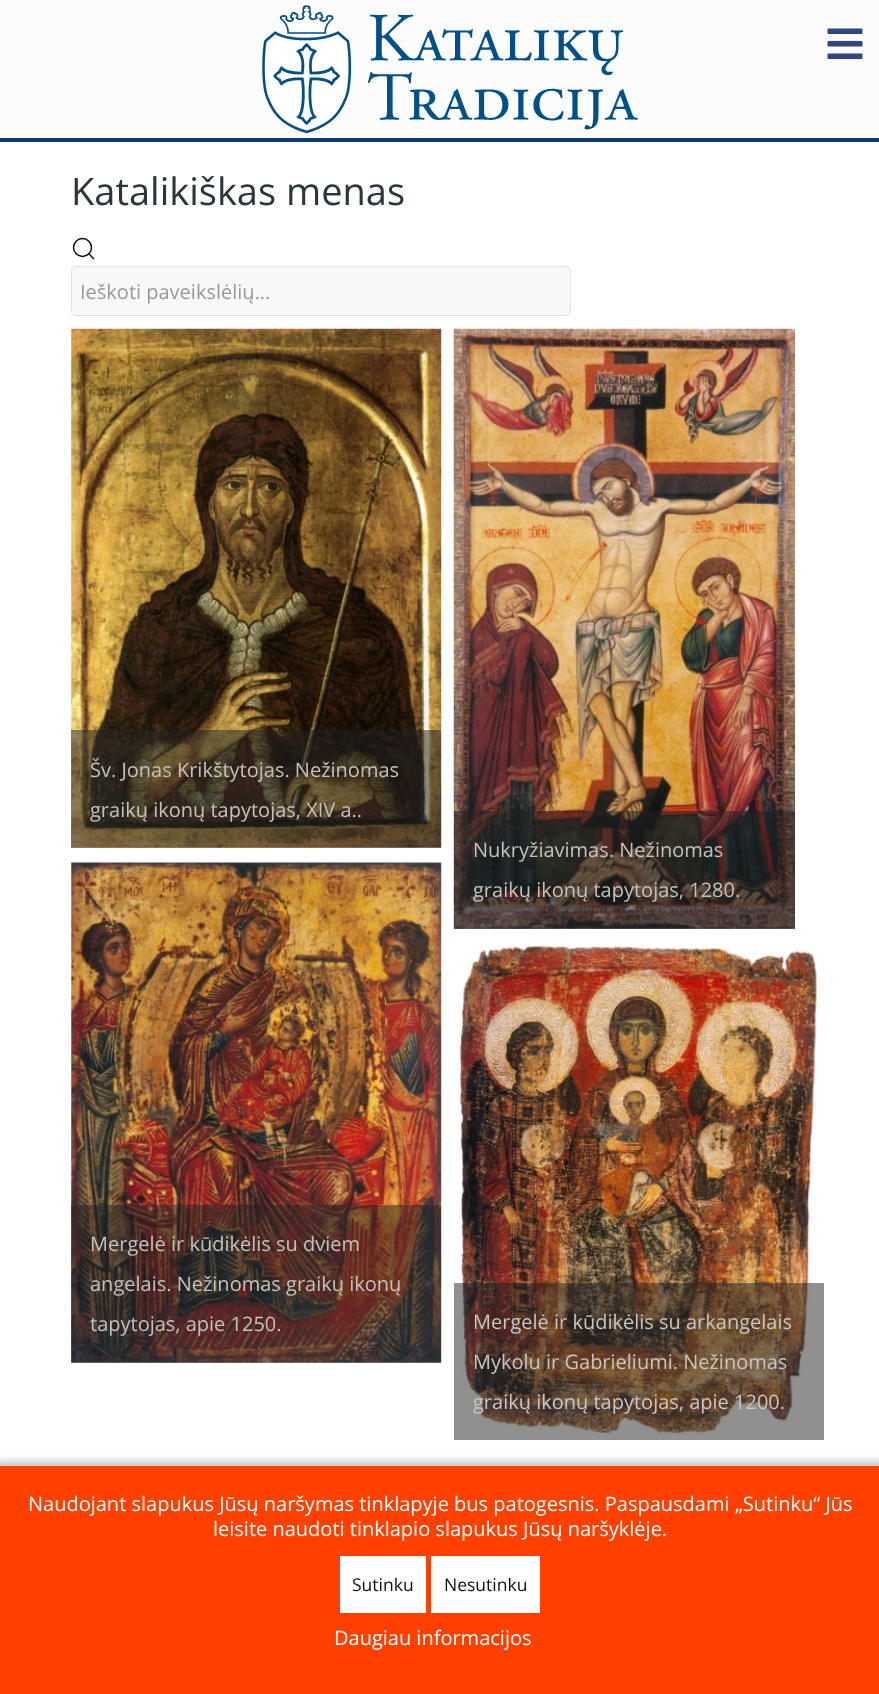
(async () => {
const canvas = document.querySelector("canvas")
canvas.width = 879
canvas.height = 1694
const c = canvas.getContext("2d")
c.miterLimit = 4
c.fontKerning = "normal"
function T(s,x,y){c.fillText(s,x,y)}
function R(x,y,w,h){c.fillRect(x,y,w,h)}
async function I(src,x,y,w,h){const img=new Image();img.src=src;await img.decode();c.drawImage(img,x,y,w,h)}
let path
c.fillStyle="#fff"
R(0,0,879,1694)
c.fillStyle="#fcfcfc"
R(0,0,879,138)
await I("1.png",262,5,376,129)
await I("2.png",827,28,36,32)
c.fillStyle="#0e3c75"
R(0,138,879,4)
c.font="38px Open Sans"
c.fillStyle="#2a363b"
T("Katalikiškas menas",71,205)
c.beginPath()
c.arc(82.5,247.5,9,0,7)
c.strokeStyle="#000"
c.lineWidth=1.4
c.stroke()
path = new Path2D("M89 254l5 5z")
c.stroke(path)
c.fillStyle="#f8f8f8"
c.beginPath()
c.roundRect(71.5,266.5,499,49,4.5)
c.fill()
c.strokeStyle="#e0e0e5"
c.lineWidth=1
c.stroke()
c.font="20px Open Sans"
c.fillStyle="#999"
T("Ieškoti paveikslėlių...",80,299)
await I("3.png",71,328,371,520)
c.fillStyle="#22222280"
R(71,730,370,118)
c.fillStyle="#c4c1bc"
T("Šv. Jonas Krikštytojas. Nežinomas",90,777)
T("graikų ikonų tapytojas, XIV a..",90,817)
await I("4.png",453,328,342,601)
c.fillStyle="#22222280"
R(454,811,341,118)
c.fillStyle="#c4c1bc"
T("Nukryžiavimas. Nežinomas",473,857)
T("graikų ikonų tapytojas, 1280.",473,897)
await I("5.png",71,862,371,501)
c.fillStyle="#22222280"
R(71,1205,370,158)
c.fillStyle="#c4c1bc"
T("Mergelė ir kūdikėlis su dviem",90,1251)
T("angelais. Nežinomas graikų ikonų",90,1291)
T("tapytojas, apie 1250.",90,1331)
await I("6.png",458,941,362,495)
c.fillStyle="#22222280"
R(454,1283,370,157)
c.fillStyle="#cbc4bf"
T("Mergelė ir kūdikėlis su arkangelais",473,1329)
T("Mykolu ir Gabrieliumi. Nežinomas",473,1369)
T("graikų ikonų tapytojas, apie 1200.",473,1409)
c.fillStyle="#00000036"
c.filter="blur(3px)"
c.beginPath()
c.rect(-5,1461,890,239)
c.fill()
c.filter="none"
c.fillStyle="#ff4000"
R(0,1466,879,228)
c.fillStyle="#fff"
T("Naudojant slapukus Jūsų naršymas tinklapyje bus patogesnis. Paspausdami „Sutinku“ Jūs",28,1511)
T("leisite naudoti tinklapio slapukus Jūsų naršyklėje.",213,1536)
R(340,1556,86,57)
c.font="17.5px Open Sans"
c.fillStyle="#111"
T("Sutinku",352,1591)
c.fillStyle="#fff"
R(431,1556,109,57)
c.fillStyle="#111"
T("Nesutinku",444,1591)
c.font="20px Open Sans"
c.fillStyle="#fff"
T("Daugiau informacijos",334,1645)
})()
